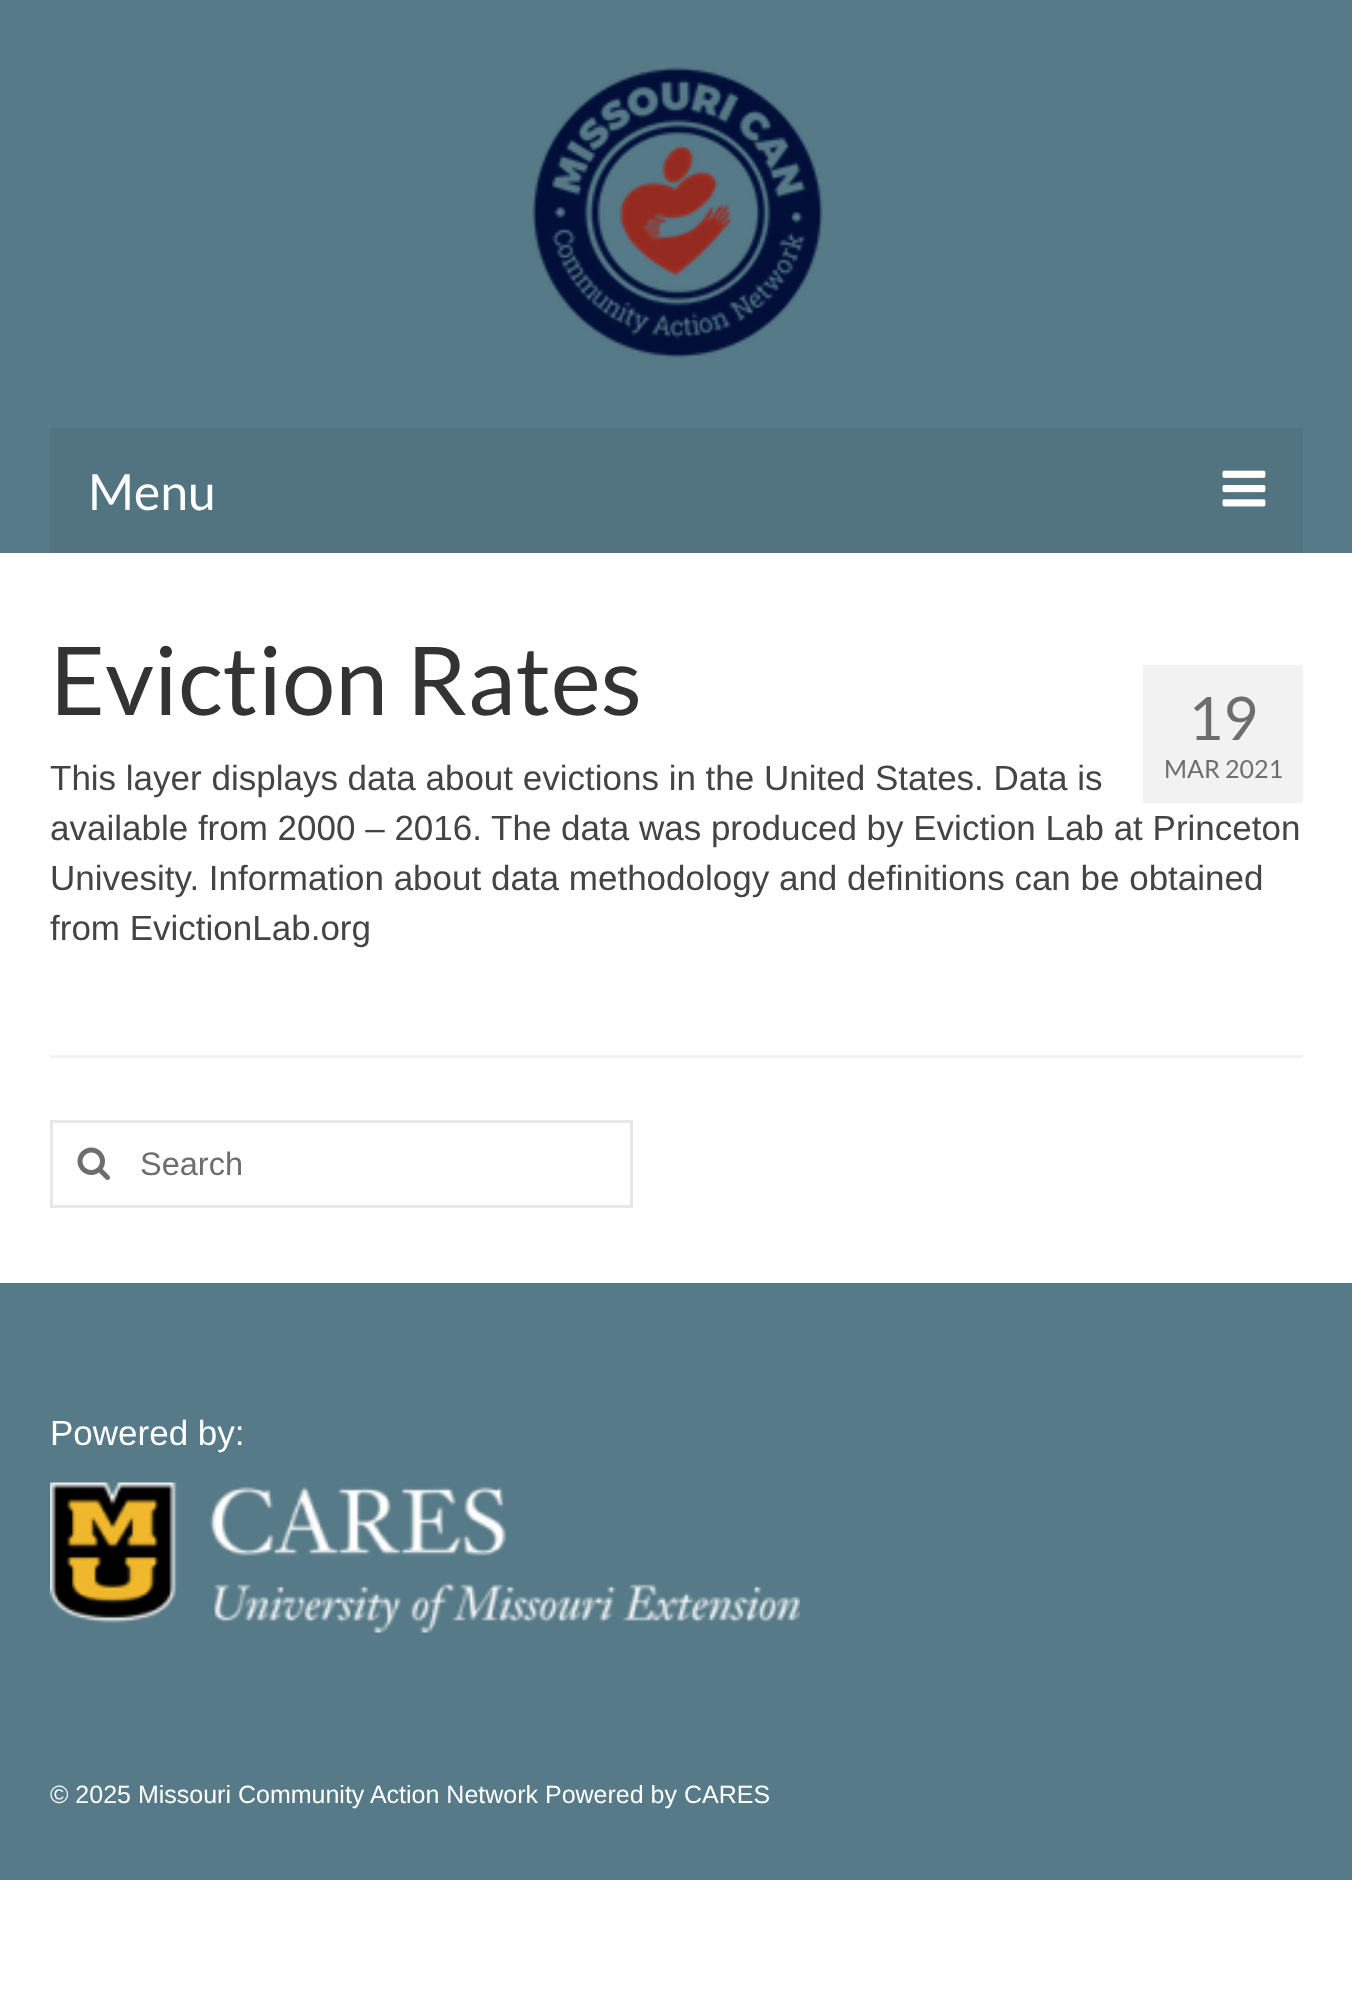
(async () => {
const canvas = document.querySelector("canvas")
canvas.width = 1352
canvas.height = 2003
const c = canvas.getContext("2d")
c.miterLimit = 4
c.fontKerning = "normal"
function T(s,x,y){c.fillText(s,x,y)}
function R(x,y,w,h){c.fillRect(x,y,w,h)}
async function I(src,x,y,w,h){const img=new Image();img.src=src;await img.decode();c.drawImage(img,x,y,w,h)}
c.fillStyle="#fff"
R(0,0,1352,2003)
c.fillStyle="#567a87"
R(0,0,1352,553)
await I("1.png",532,67,291,291)
c.fillStyle="#527480"
R(50,428,1253,125)
c.font="50px Lato"
c.fillStyle="#fff"
T("Menu",88,510)
await I("2.png",1222,470,44,37)
c.font="95px Lato"
c.fillStyle="#333"
T("Eviction Rates",50,715)
c.fillStyle="#f2f2f2"
R(1143,665,160,138)
c.font="60px Lato"
c.fillStyle="#6e6e6e"
T("19",1188,740)
c.font="25px Lato"
T("MAR 2021",1164,778)
c.font="35px Liberation Sans"
c.fillStyle="#444"
T("This layer displays data about evictions in the United States. Data is",50,790)
T("available from 2000 – 2016. The data was produced by Eviction Lab at Princeton",50,840)
T("Univesity. Information about data methodology and definitions can be obtained",50,890)
T("from EvictionLab.org",50,940)
c.fillStyle="#f2f2f2"
R(50,1055,1253,3)
c.strokeStyle="#e7e7e7"
c.lineWidth=3
c.strokeRect(51.5,1121.5,580,85)
await I("3.png",77,1147,33,33)
c.font="32.5px Liberation Sans"
c.fillStyle="#6e6e6e"
T("Search",140,1175)
c.fillStyle="#567a87"
R(0,1283,1352,597)
c.font="35px Liberation Sans"
c.fillStyle="#fff"
T("Powered by:",50,1445)
await I("4.png",50,1482,750,151)
c.font="25px Liberation Sans"
T("© 2025 Missouri Community Action Network Powered by CARES",50,1803)
})()
